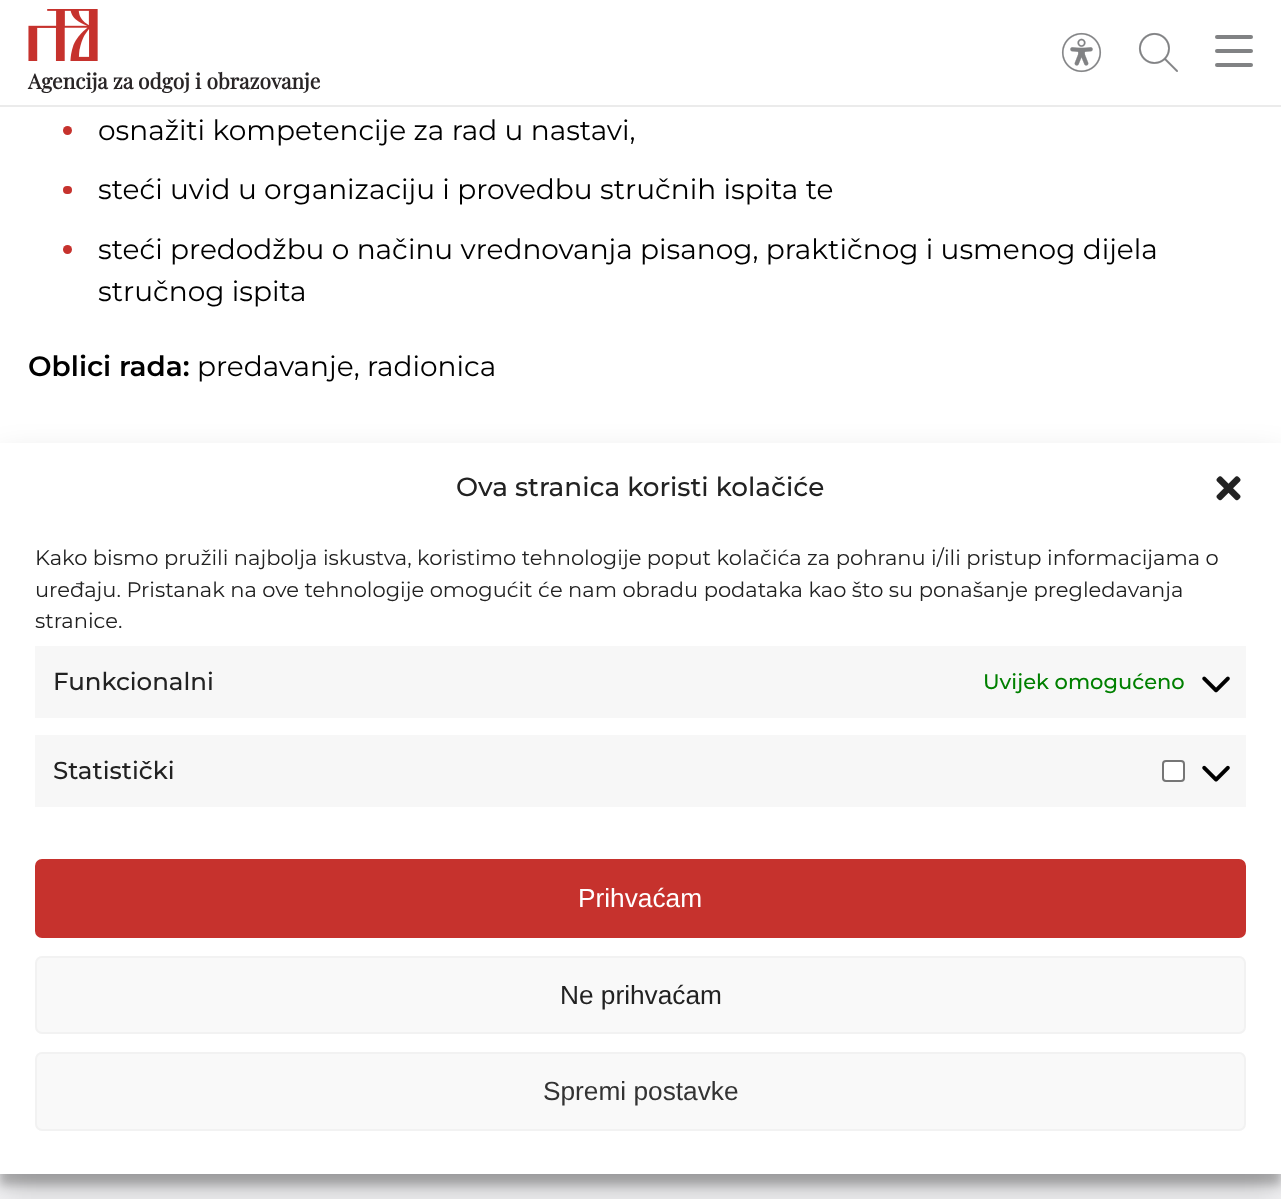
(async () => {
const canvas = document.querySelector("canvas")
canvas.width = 1281
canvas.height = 1199
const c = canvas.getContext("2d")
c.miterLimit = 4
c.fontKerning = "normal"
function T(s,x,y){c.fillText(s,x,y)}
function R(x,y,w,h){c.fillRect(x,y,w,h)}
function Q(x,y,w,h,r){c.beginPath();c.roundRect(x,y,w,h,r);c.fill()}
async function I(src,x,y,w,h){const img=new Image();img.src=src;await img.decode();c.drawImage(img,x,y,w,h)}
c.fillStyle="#fff"
R(0,0,1281,1199)
c.fillStyle="#ebebeb"
R(0,105,1281,2)
await I("1.png",1061,32,41,41)
await I("2.png",1138,32,40,40)
c.fillStyle="#818284"
Q(1215,35,38,4,2)
Q(1215,49,38,4,2)
Q(1215,63,38,4,2)
await I("3.png",28,9,70,52)
c.font="bold 21px Playfair Display"
c.fillStyle="#292526"
T("Agencija za odgoj i obrazovanje",28,89)
c.fillStyle="#c6322d"
c.beginPath()
c.arc(67.5,130.5,4.5,0,7)
c.fill()
c.font="28px Montserrat"
c.fillStyle="#000"
T("osnažiti kompetencije za rad u nastavi,",98,140)
c.fillStyle="#c6322d"
Q(63,186,9,8,4)
c.fillStyle="#000"
T("steći uvid u organizaciju i provedbu stručnih ispita te",98,199)
c.fillStyle="#c6322d"
c.beginPath()
c.arc(67.5,249.5,4.5,0,7)
c.fill()
c.fillStyle="#000"
T("steći predodžbu o načinu vrednovanja pisanog, praktičnog i usmenog dijela",98,259)
T("stručnog ispita",98,301)
c.font="600 28px Montserrat"
T("Oblici rada:",28,376)
c.font="28px Montserrat"
T("predavanje, radionica",197,376)
c.fillStyle="#f5f5f7"
R(0,1174,1281,25)
c.fillStyle="#0000003b"
c.filter="blur(5px)"
c.beginPath()
c.rect(0,453,1281,732)
c.fill()
c.filter="none"
c.fillStyle="#00000030"
c.filter="blur(17.5px)"
c.beginPath()
c.rect(0,460,1281,732)
c.fill()
c.filter="none"
c.fillStyle="#fff"
R(0,443,1281,731)
c.font="500 26.25px Montserrat"
c.fillStyle="#222"
T("Ova stranica koristi kolačiće",456,496)
await I("4.png",1216,476,25,25)
c.font="21px Montserrat"
T("Kako bismo pružili najbolja iskustva, koristimo tehnologije poput kolačića za pohranu i/ili pristup informacijama o",35,565)
T("uređaju. Pristanak na ove tehnologije omogućit će nam obradu podataka kao što su ponašanje pregledavanja",35,597)
T("stranice.",35,628)
c.fillStyle="#f7f7f7"
R(35,646,1211,72)
c.font="500 24.5px Montserrat"
c.fillStyle="#222"
T("Funkcionalni",53,690)
c.font="500 21px Montserrat"
c.fillStyle="#008000"
T("Uvijek omogućeno",983,689)
await I("5.png",1202,676,28,17)
c.fillStyle="#f7f7f7"
R(35,735,1211,72)
c.font="500 24.5px Montserrat"
c.fillStyle="#222"
T("Statistički",53,779)
c.fillStyle="#fff"
c.beginPath()
c.roundRect(1163,761,21,20,3)
c.fill()
c.strokeStyle="#767676"
c.lineWidth=2
c.stroke()
await I("6.png",1202,765,28,17)
c.fillStyle="#c6322d"
c.beginPath()
c.roundRect(36,860,1209,77,6)
c.fill()
c.strokeStyle="#c6322d"
c.stroke()
c.font="26.25px Liberation Sans"
c.fillStyle="#fff"
T("Prihvaćam",578,907)
c.fillStyle="#f9f9f9"
c.beginPath()
c.roundRect(36,957,1209,76,6)
c.fill()
c.strokeStyle="#f2f2f2"
c.stroke()
c.fillStyle="#222"
T("Ne prihvaćam",560,1004)
c.fillStyle="#f9f9f9"
c.beginPath()
c.roundRect(36,1053,1209,77,6)
c.fill()
c.stroke()
c.fillStyle="#333"
T("Spremi postavke",543,1100)
})()
